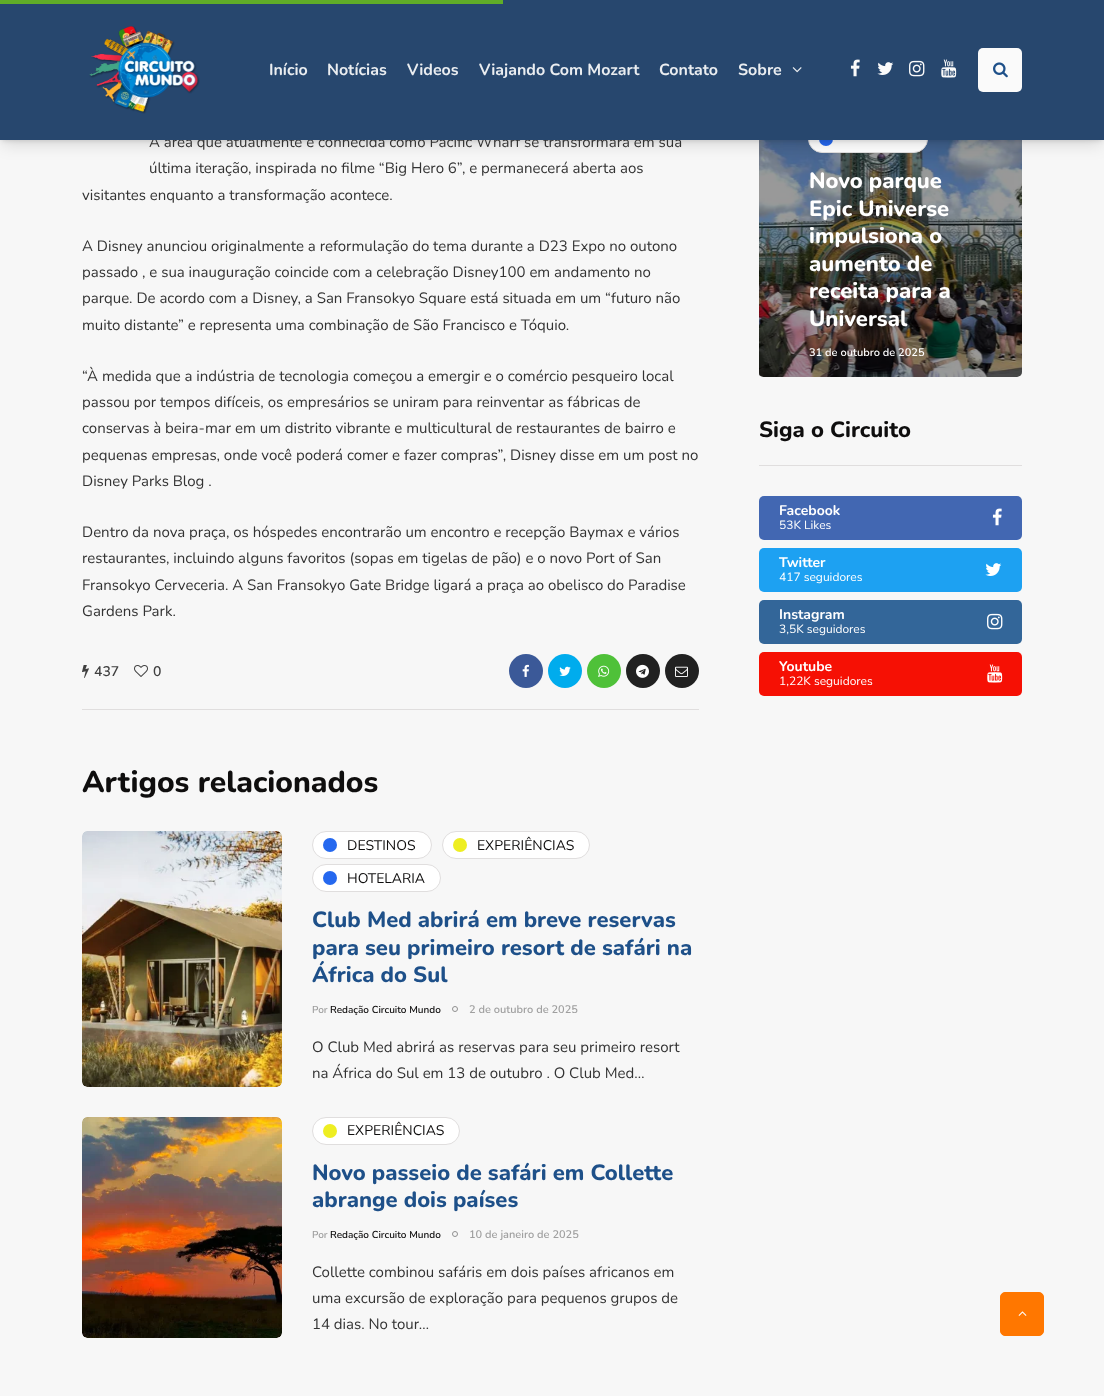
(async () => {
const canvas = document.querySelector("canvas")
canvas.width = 1104
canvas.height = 1396
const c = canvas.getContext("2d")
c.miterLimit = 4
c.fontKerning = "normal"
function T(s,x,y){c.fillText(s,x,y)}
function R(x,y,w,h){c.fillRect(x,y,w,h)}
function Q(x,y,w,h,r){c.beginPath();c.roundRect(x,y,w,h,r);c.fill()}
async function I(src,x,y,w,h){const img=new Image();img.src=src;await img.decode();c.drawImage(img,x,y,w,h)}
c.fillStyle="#f7f7f7"
R(0,0,1104,1396)
await I("15.png",759,140,263,237)
c.save()
c.beginPath()
c.roundRect(758,27,264,350,5)
c.clip()
c.fillStyle="#00000066"
c.beginPath()
c.roundRect(759,27,263,350,[0,5,5,0])
c.fill()
c.restore()
c.fillStyle="#fff"
c.beginPath()
c.roundRect(808.5,125.5,119,27,13.5)
c.fill()
c.strokeStyle="#e0dede"
c.stroke()
c.fillStyle="#2568ef"
c.beginPath()
c.arc(826,139,7,0,7)
c.fill()
c.fillStyle="#00000026"
c.filter="blur(8.5px)"
c.beginPath()
c.rect(2,7,1100,136)
c.fill()
c.filter="none"
c.filter="blur(2.5px)"
c.beginPath()
c.rect(2,4,1100,136)
c.fill()
c.filter="none"
c.font="15px Nunito"
c.fillStyle="#333"
T("A área que atualmente é conhecida como Pacific Wharf se transformará em sua",149,147)
c.fillStyle="#27476e"
R(0,0,1104,140)
c.fillStyle="#60ad28"
R(0,0,503,4)
await I("1.png",89,26,111,88)
c.font="bold 16px Nunito"
c.fillStyle="#eaedf0"
T("Início",269,75)
T("Notícias",327,75)
T("Videos",407,75)
T("Viajando Com Mozart",479,75)
T("Contato",659,75)
T("Sobre",738,75)
await I("2.png",792,67,10,6)
await I("3.png",850,59,10,18)
await I("4.png",877,62,17,13)
await I("5.png",909,60,16,17)
await I("6.png",941,59,16,19)
c.fillStyle="#fafafa"
Q(978,48,44,44,5)
await I("7.png",993,62,15,16)
c.font="15px Nunito"
c.fillStyle="#333"
T("última iteração, inspirada no filme “Big Hero 6”, e permanecerá aberta aos",149,173)
T("visitantes enquanto a transformação acontece.",82,200)
T("A Disney anunciou originalmente a reformulação do tema durante a D23 Expo no outono",82,251)
T("passado , e sua inauguração coincide com a celebração Disney100 em andamento no",82,277)
T("parque. De acordo com a Disney, a San Fransokyo Square está situada em um “futuro não",82,303)
T("muito distante” e representa uma combinação de São Francisco e Tóquio.",82,330)
T("“À medida que a indústria de tecnologia começou a emergir e o comércio pesqueiro local",82,381)
T("passou por tempos difíceis, os empresários se uniram para reinventar as fábricas de",82,407)
T("conservas à beira-mar em um distrito vibrante e multicultural de restaurantes de bairro e",82,433)
T("pequenas empresas, onde você poderá comer e fazer compras”, Disney disse em um post no",82,460)
T("Disney Parks Blog .",82,486)
T("Dentro da nova praça, os hóspedes encontrarão um encontro e recepção Baymax e vários",82,537)
T("restaurantes, incluindo alguns favoritos (sopas em tigelas de pão) e o novo Port of San",82,563)
T("Fransokyo Cerveceria. A San Fransokyo Gate Bridge ligará a praça ao obelisco do Paradise",82,590)
T("Gardens Park.",82,616)
c.fillStyle="#e0dede"
R(82,709,617,1)
await I("8.png",82,665,7,13)
c.font="600 14px Nunito"
c.fillStyle="#3f3f3f"
T("437",94,676)
await I("9.png",134,665,14,12)
T("0",153,676)
c.fillStyle="#3b5998"
c.beginPath()
c.arc(526,671,17,0,7)
c.fill()
await I("10.png",522,664,7,13)
c.fillStyle="#00aced"
c.beginPath()
c.arc(565,671,17,0,7)
c.fill()
await I("11.png",559,666,12,10)
c.fillStyle="#4fc139"
c.beginPath()
c.arc(604,671,17,0,7)
c.fill()
await I("12.png",598,665,12,12)
c.fillStyle="#212121"
c.beginPath()
c.arc(643,671,17,0,7)
c.fill()
await I("13.png",636,664,13,14)
c.beginPath()
c.arc(682,671,17,0,7)
c.fill()
await I("14.png",675,666,13,11)
c.font="800 22px Nunito"
c.fillStyle="#fff"
T("Novo parque",809,188)
T("Epic Universe",809,216)
T("impulsiona o",809,243)
T("aumento de",809,271)
T("receita para a",809,298)
T("Universal",809,326)
c.font="600 11px Nunito"
T("31 de outubro de 2025",809,356)
c.fillStyle="#e0dede"
R(759,465,263,1)
c.font="800 22px Nunito"
c.fillStyle="#0f0e0e"
T("Siga o Circuito",759,437)
c.fillStyle="#4267b2"
Q(759,496,263,44,5)
c.font="bold 14px Nunito"
c.fillStyle="#fff"
T("Facebook",779,515)
await I("16.png",992,508,10,18)
c.font="12px Nunito"
T("53K Likes",779,529)
c.fillStyle="#1da1f2"
Q(759,548,263,44,5)
c.font="bold 14px Nunito"
c.fillStyle="#fff"
T("Twitter",779,567)
await I("17.png",985,563,17,13)
c.font="12px Nunito"
T("417 seguidores",779,581)
c.fillStyle="#369"
Q(759,600,263,44,5)
c.font="bold 14px Nunito"
c.fillStyle="#fff"
T("Instagram",779,619)
await I("18.png",987,613,16,17)
c.font="12px Nunito"
T("3,5K seguidores",779,633)
c.fillStyle="#f61004"
Q(759,652,263,44,5)
c.font="bold 14px Nunito"
c.fillStyle="#fff"
T("Youtube",779,671)
await I("19.png",987,664,16,19)
c.font="12px Nunito"
T("1,22K seguidores",779,685)
c.font="800 30px Nunito"
c.fillStyle="#0f0e0e"
T("Artigos relacionados",82,792)
await I("20.png",82,831,200,256)
c.fillStyle="#fff"
c.beginPath()
c.roundRect(312.5,831.5,119,27,13.5)
c.fill()
c.stroke()
c.fillStyle="#2568ef"
c.beginPath()
c.arc(330,845,7,0,7)
c.fill()
c.font="14px Nunito"
c.fillStyle="#0f0e0e"
T("DESTINOS",347,850)
c.fillStyle="#fff"
c.beginPath()
c.roundRect(442.5,831.5,147,27,13.5)
c.fill()
c.stroke()
c.fillStyle="#ee2"
c.beginPath()
c.arc(460,845,7,0,7)
c.fill()
c.fillStyle="#0f0e0e"
T("EXPERIÊNCIAS",477,850)
c.fillStyle="#fff"
c.beginPath()
c.roundRect(312.5,864.5,128,27,13.5)
c.fill()
c.stroke()
c.fillStyle="#2568ef"
c.beginPath()
c.arc(330,878,7,0,7)
c.fill()
c.fillStyle="#0f0e0e"
T("HOTELARIA",347,883)
c.font="800 22px Nunito"
c.fillStyle="#1e5089"
T("Club Med abrirá em breve reservas",312,927)
T("para seu primeiro resort de safári na",312,955)
T("África do Sul",312,982)
c.font="600 10px Nunito"
c.fillStyle="#9f9f9f"
T("Por",312,1013)
c.fillStyle="#0f0e0e"
T("Redação Circuito Mundo",330,1013)
c.beginPath()
c.arc(455,1009,2.5,0,7)
c.strokeStyle="#909090"
c.stroke()
c.font="600 11px Nunito"
c.fillStyle="#9f9f9f"
T("2 de outubro de 2025",469,1013)
c.font="15px Nunito"
c.fillStyle="#333"
T("O Club Med abrirá as reservas para seu primeiro resort",312,1052)
T("na África do Sul em 13 de outubro . O Club Med…",312,1078)
await I("21.png",82,1117,200,221)
c.fillStyle="#fff"
c.beginPath()
c.roundRect(312.5,1117.5,147,27,13.5)
c.fill()
c.strokeStyle="#e0dede"
c.stroke()
c.fillStyle="#ee2"
c.beginPath()
c.arc(330,1131,7,0,7)
c.fill()
c.font="14px Nunito"
c.fillStyle="#0f0e0e"
T("EXPERIÊNCIAS",347,1135)
c.font="800 22px Nunito"
c.fillStyle="#1e5089"
T("Novo passeio de safári em Collette",312,1180)
T("abrange dois países",312,1207)
c.font="600 10px Nunito"
c.fillStyle="#9f9f9f"
T("Por",312,1238)
c.fillStyle="#0f0e0e"
T("Redação Circuito Mundo",330,1238)
c.beginPath()
c.arc(455,1234,2.5,0,7)
c.strokeStyle="#909090"
c.stroke()
c.font="600 11px Nunito"
c.fillStyle="#9f9f9f"
T("10 de janeiro de 2025",469,1238)
c.font="15px Nunito"
c.fillStyle="#333"
T("Collette combinou safáris em dois países africanos em",312,1277)
T("uma excursão de exploração para pequenos grupos de",312,1303)
T("14 dias. No tour…",312,1329)
c.fillStyle="#f70"
c.beginPath()
c.roundRect(1000.5,1292.5,43,43,4.5)
c.fill()
c.strokeStyle="#f70"
c.stroke()
await I("22.png",1018,1311,9,5)
})()
